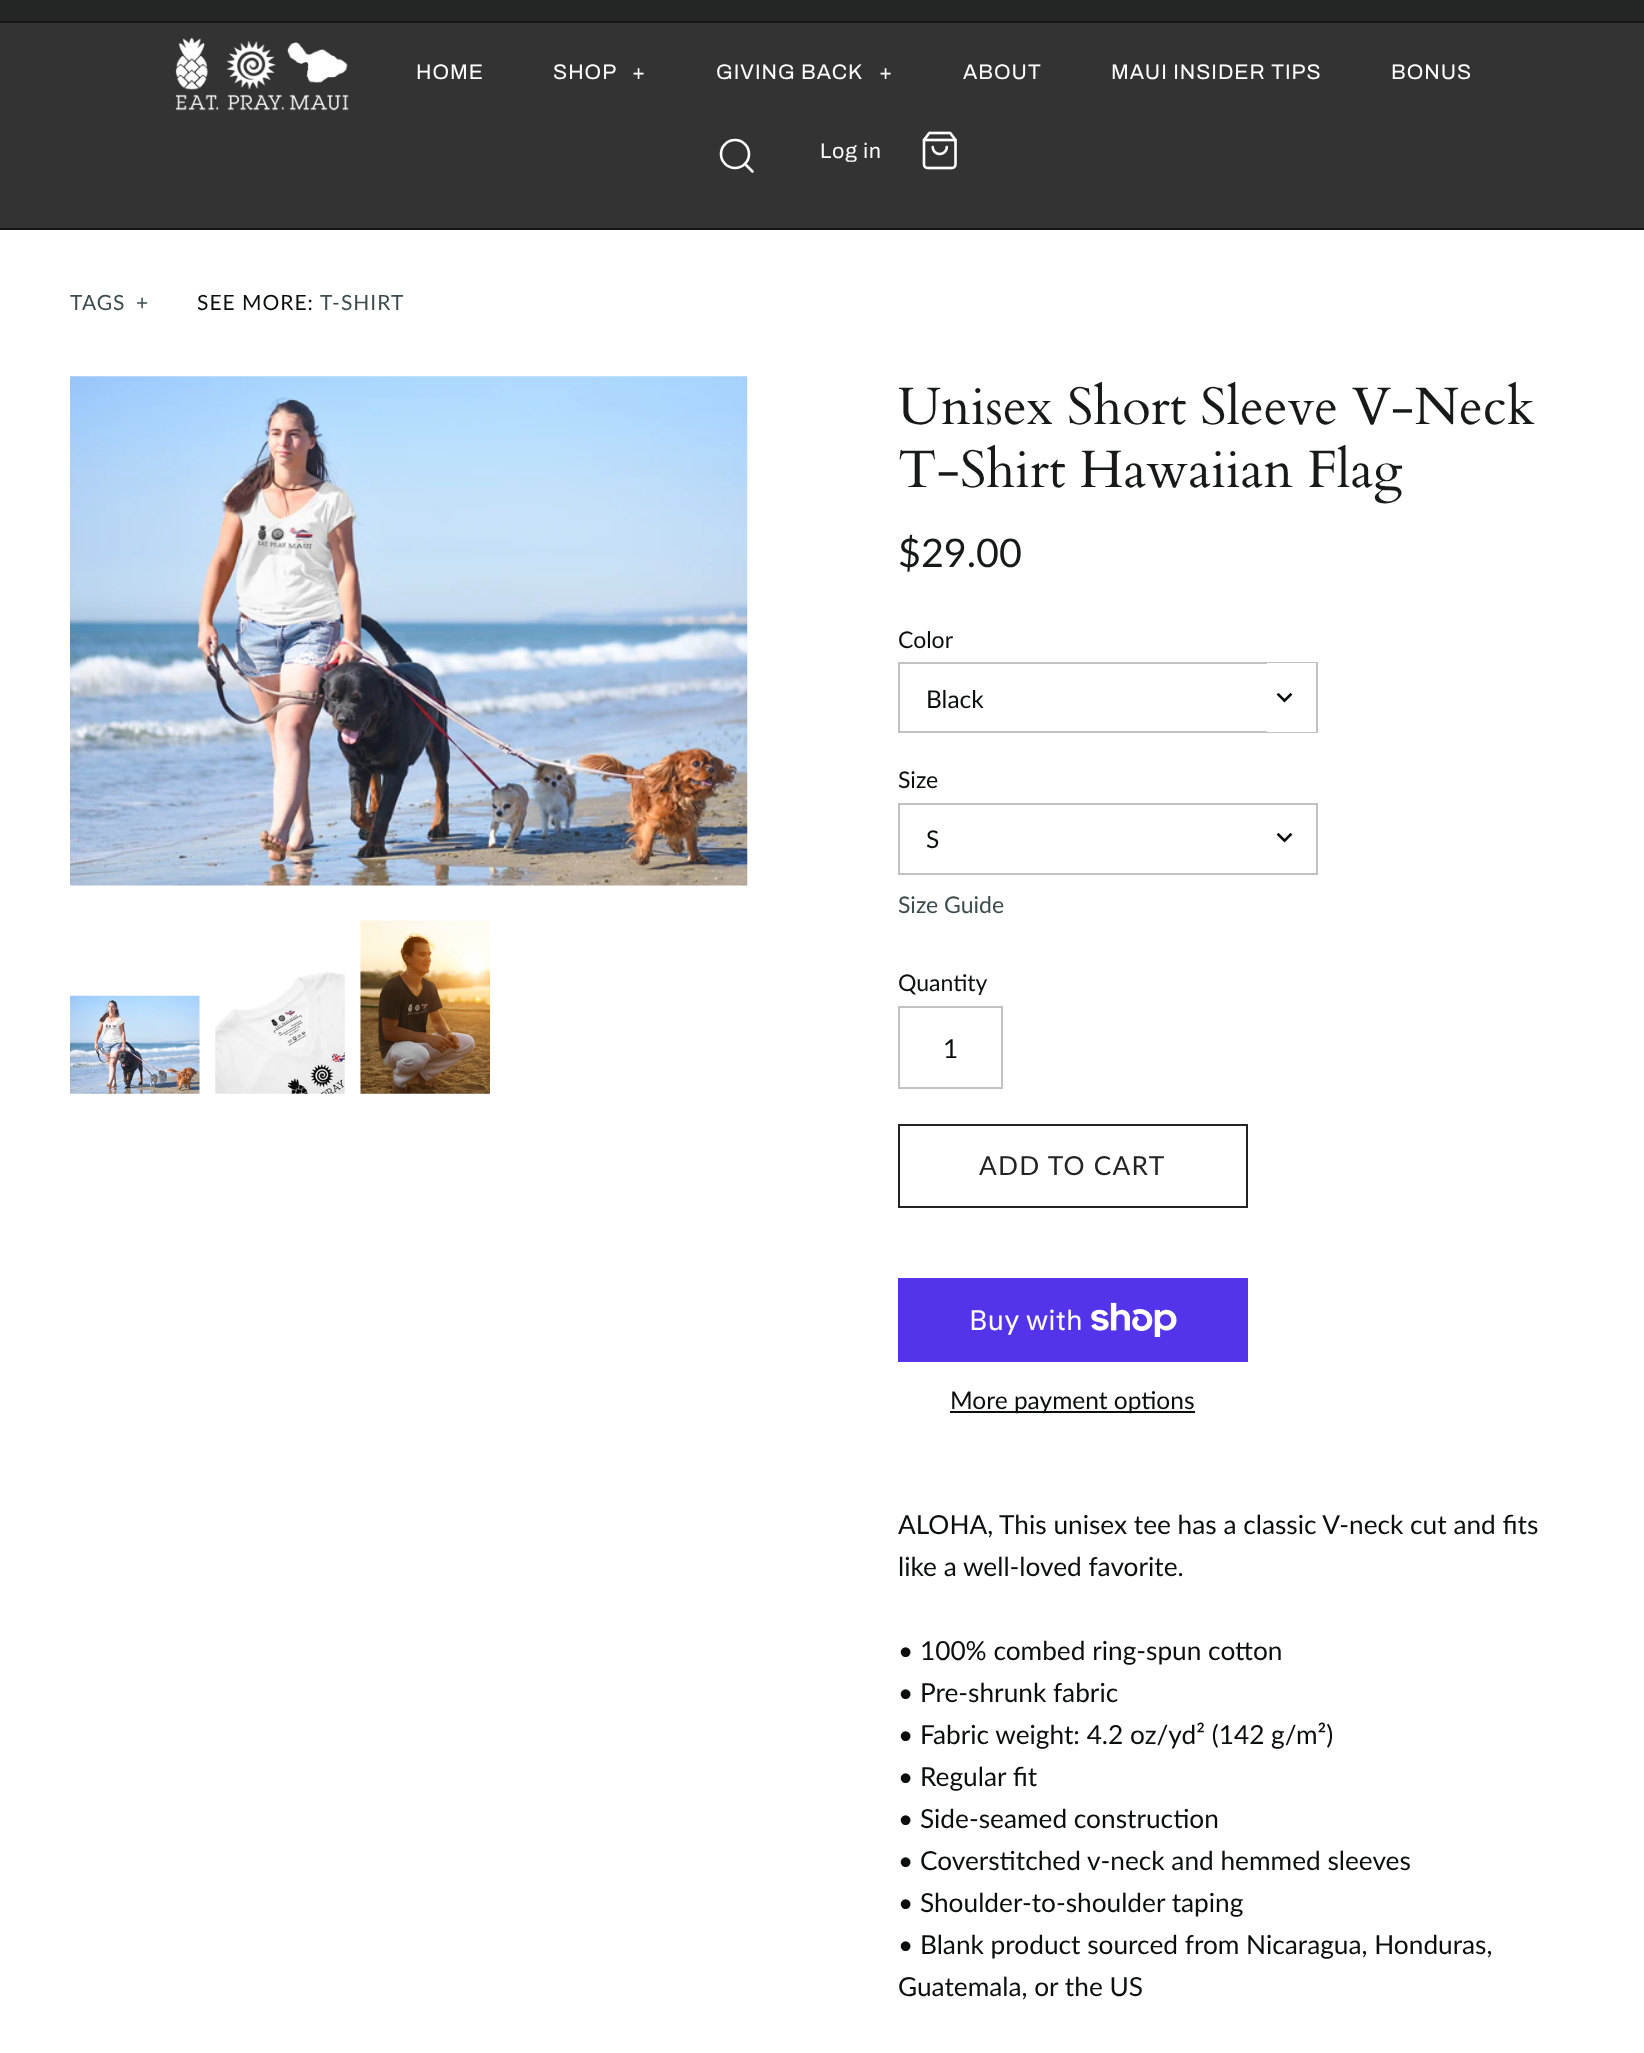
(async () => {
const canvas = document.querySelector("canvas")
canvas.width = 1644
canvas.height = 2053
const c = canvas.getContext("2d")
c.miterLimit = 4
c.fontKerning = "normal"
function T(s,x,y){c.fillText(s,x,y)}
function R(x,y,w,h){c.fillRect(x,y,w,h)}
async function I(src,x,y,w,h){const img=new Image();img.src=src;await img.decode();c.drawImage(img,x,y,w,h)}
let path
c.fillStyle="#fff"
R(0,0,1644,2053)
c.fillStyle="#242525"
R(0,0,1644,21)
c.fillStyle="#171515"
R(0,228,1644,2)
c.fillStyle="#333"
R(0,23,1644,205)
c.fillStyle="#171515"
R(0,21,1644,2)
await I("1.png",175,37,174,74)
c.letterSpacing="1px"
c.font="21px Archivo"
c.fillStyle="#fff"
T("HOME",416,79)
T("SHOP",553,79)
T("+",632,79)
T("GIVING BACK",716,79)
T("+",879,79)
T("ABOUT",963,79)
T("MAUI INSIDER TIPS",1111,79)
T("BONUS",1391,79)
c.beginPath()
c.arc(735,154,14,0,7)
c.strokeStyle="#fff"
c.lineWidth=2.6
c.stroke()
path = new Path2D("M752.5 171.5l-7.5-7.5")
c.lineCap="round"
c.lineJoin="round"
c.stroke(path)
T("Log in",820,158)
await I("2.png",922,131,35,39)
c.font="21px Lato"
c.fillStyle="#3d4c4f"
T("TAGS",70,310)
T("+",136,310)
c.fillStyle="#0c0d0d"
T("SEE MORE:",197,310)
c.fillStyle="#3d4c4f"
T("T-SHIRT",320,310)
await I("3.png",70,376,678,510)
await I("4.png",70,995,130,99)
await I("5.png",215,972,130,122)
await I("6.png",360,920,130,174)
c.letterSpacing="0px"
c.font="52.5px Cardo"
c.fillStyle="#181919"
T("Unisex Short Sleeve V-Neck",898,424)
T("T-Shirt Hawaiian Flag",898,487)
c.font="39.5px Lato"
T("$29.00",898,567)
c.font="23px Lato"
c.fillStyle="#0c0d0d"
T("Color",898,648)
c.strokeStyle="#c2c2c2"
c.lineWidth=2
c.lineJoin="miter"
c.strokeRect(899,663,418,69)
c.font="24.5px Lato"
T("Black",926,708)
c.fillStyle="#fff"
R(1267,663,49,69)
await I("7.png",1276,692,17,11)
c.font="23px Lato"
c.fillStyle="#0c0d0d"
T("Size",898,788)
c.strokeRect(899,804,418,70)
c.font="24.5px Lato"
T("S",926,848)
await I("7.png",1276,832,17,11)
c.font="23px Lato"
c.fillStyle="#3d4c4f"
T("Size Guide",898,913)
c.fillStyle="#0c0d0d"
T("Quantity",898,991)
c.strokeRect(899,1007,103,81)
c.font="26.25px Lato"
T("1",943,1058)
c.strokeStyle="#232323"
c.strokeRect(899,1125,348,82)
c.letterSpacing="1.25px"
c.fillStyle="#232323"
T("ADD TO CART",979,1175)
c.fillStyle="#5433eb"
R(898,1278,350,84)
c.letterSpacing="0px"
c.font="28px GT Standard"
c.fillStyle="#fff"
T("Buy with",969,1330)
await I("8.png",1091,1302,86,35)
c.fillStyle="#0c0d0d"
R(950,1411,245,2)
c.font="24.5px Lato"
T("More payment options",950,1409)
c.font="26.25px Lato"
T("ALOHA, This unisex tee has a classic V-neck cut and fits",898,1534)
T("like a well-loved favorite.",898,1576)
T("• 100% combed ring-spun cotton",898,1660)
T("• Pre-shrunk fabric",898,1702)
T("• Fabric weight: 4.2 oz/yd² (142 g/m²)",898,1744)
T("• Regular fit",898,1786)
T("• Side-seamed construction",898,1828)
T("• Coverstitched v-neck and hemmed sleeves",898,1870)
T("• Shoulder-to-shoulder taping",898,1912)
T("• Blank product sourced from Nicaragua, Honduras,",898,1954)
T("Guatemala, or the US",898,1996)
})()
